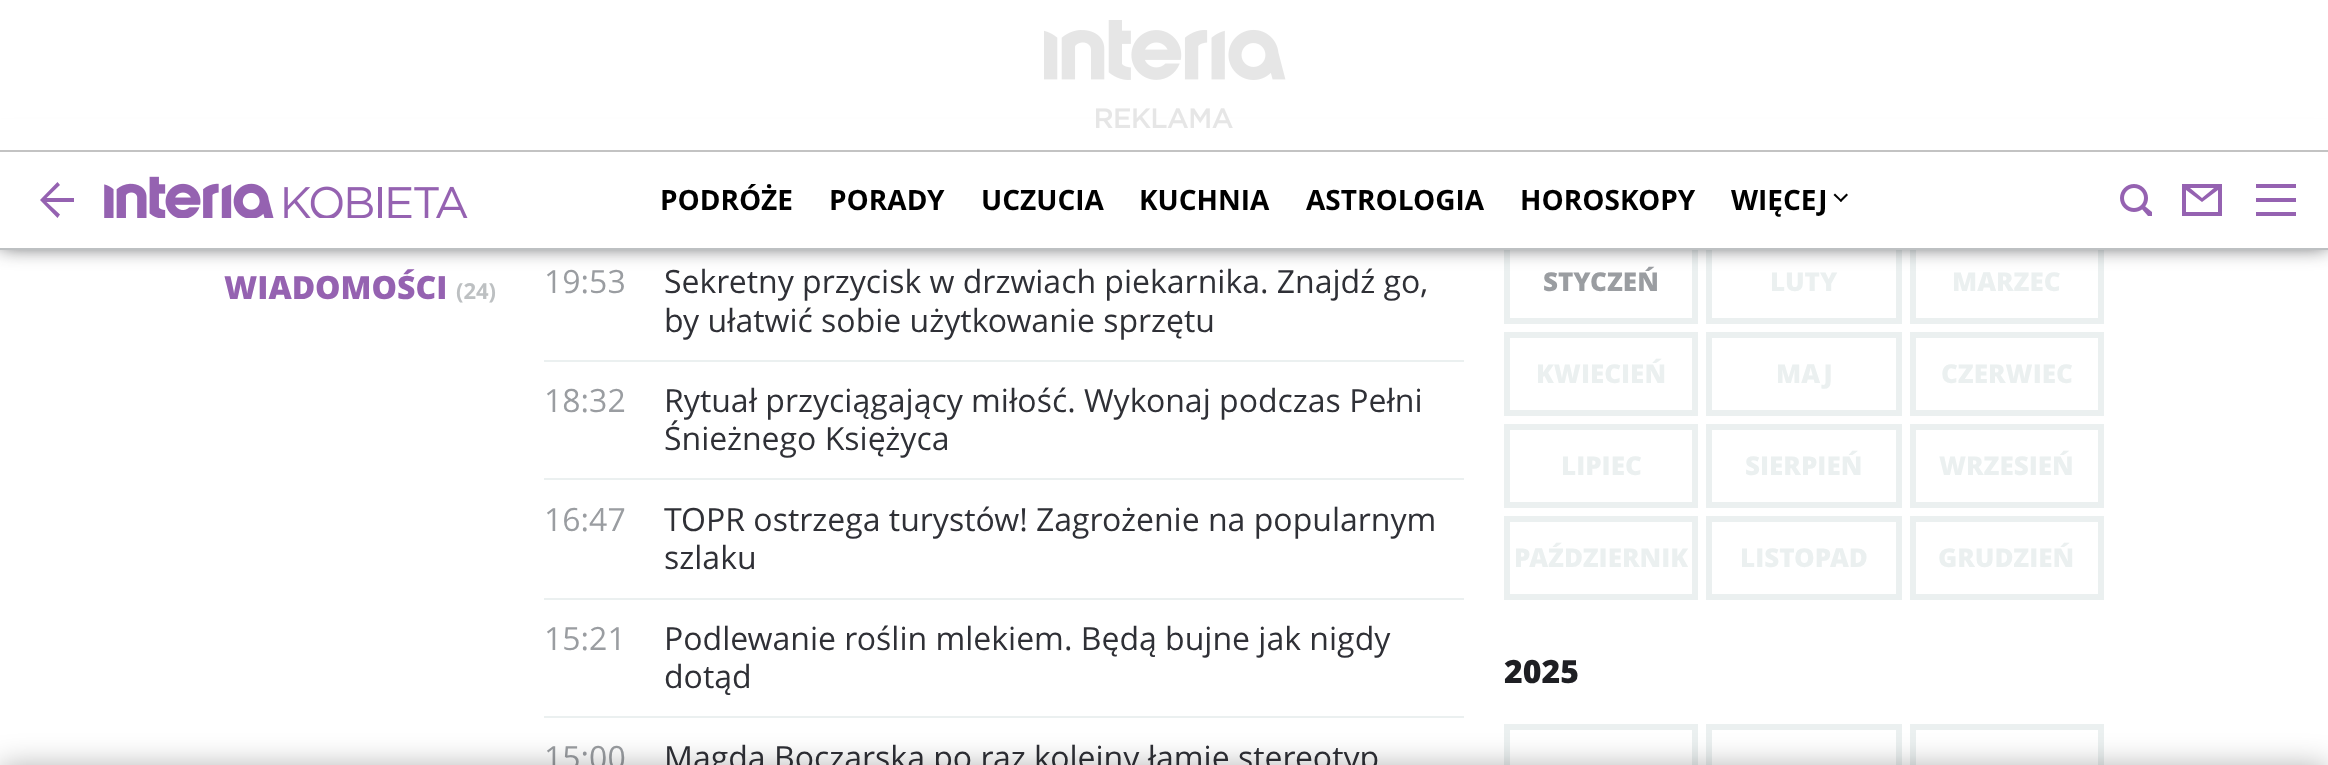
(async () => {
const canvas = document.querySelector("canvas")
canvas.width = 2328
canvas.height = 765
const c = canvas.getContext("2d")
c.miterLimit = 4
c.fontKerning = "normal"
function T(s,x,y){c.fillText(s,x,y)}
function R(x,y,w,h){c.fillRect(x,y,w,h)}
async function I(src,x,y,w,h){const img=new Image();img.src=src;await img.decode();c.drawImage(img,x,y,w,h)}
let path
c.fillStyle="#fff"
R(0,0,2328,765)
c.strokeStyle="#ebf0f0"
c.lineWidth=6
c.strokeRect(1507,243,188,78)
c.strokeRect(1709,243,190,78)
c.strokeRect(1913,243,188,78)
c.fillStyle="#1e1f23"
c.filter="blur(11px)"
c.beginPath()
c.rect(0,144,2328,100)
c.fill()
c.filter="none"
c.fillStyle="#fff"
R(0,119,2328,31)
c.fillStyle="#c3c3c3"
R(0,150,2328,2)
await I("1.png",1044,20,242,60)
await I("2.png",1096,108,137,20)
c.fillStyle="#fff"
R(0,152,2328,96)
c.fillStyle="#bdc0c2"
R(0,248,2328,2)
c.fillStyle="#9562b1"
path = new Path2D("M74 198h-27.5l13.5-13l-2.5-3l-17.5 18l17.5 18l2.5-3.5l-13.5-12.5h27.5z")
c.fill(path,"evenodd")
await I("3.png",104,176,170,42)
await I("4.png",284,186,184,32)
c.font="bold 28px Open Sans"
c.fillStyle="#000"
T("PODRÓŻE",660,210)
T("PORADY",829,210)
T("UCZUCIA",981,210)
T("KUCHNIA",1139,210)
T("ASTROLOGIA",1306,210)
T("HOROSKOPY",1520,210)
T("WIĘCEJ",1731,210)
path = new Path2D("M1846.5 193.5l1.5 1.5l-7 7l-1.5-1.5z")
c.fill(path)
path = new Path2D("M1835 193.5l7 7l-1 1.5l-7.5-7z")
c.fill(path)
await I("5.png",2120,184,32,32)
c.fillStyle="#9562b1"
path = new Path2D("M2182 184v32h40v-32zm32 4l-12 10l-12-10zm4 24h-32v-22l16 12l16-12z")
c.fill(path,"evenodd")
path = new Path2D("M2296 188h-40v-4h40zm0 10h-40v4h40zm0 14h-40v4h40z")
c.fill(path,"evenodd")
c.font="800 32px Open Sans"
T("WIADOMOŚCI",224,299)
c.font="bold 22px Open Sans"
c.fillStyle="#bdc0c2"
T("(24)",456,299)
c.font="32px Open Sans"
c.fillStyle="#9a9da1"
T("19:53",544,293)
c.fillStyle="#2f3036"
T("Sekretny przycisk w drzwiach piekarnika. Znajdź go,",664,293)
T("by ułatwić sobie użytkowanie sprzętu",664,332)
c.fillStyle="#ebf0f0"
R(544,360,920,2)
c.fillStyle="#9a9da1"
T("18:32",544,412)
c.fillStyle="#2f3036"
T("Rytuał przyciągający miłość. Wykonaj podczas Pełni",664,412)
T("Śnieżnego Księżyca",664,450)
c.fillStyle="#ebf0f0"
R(544,478,920,2)
c.fillStyle="#9a9da1"
T("16:47",544,531)
c.fillStyle="#2f3036"
T("TOPR ostrzega turystów! Zagrożenie na popularnym",664,531)
T("szlaku",664,569)
c.fillStyle="#ebf0f0"
R(544,598,920,2)
c.fillStyle="#9a9da1"
T("15:21",544,650)
c.fillStyle="#2f3036"
T("Podlewanie roślin mlekiem. Będą bujne jak nigdy",664,650)
T("dotąd",664,688)
c.fillStyle="#ebf0f0"
R(544,716,920,2)
c.fillStyle="#9a9da1"
T("15:00",544,769)
c.fillStyle="#2f3036"
T("Magda Boczarska po raz kolejny łamie stereotyp",664,769)
c.font="800 26px Open Sans"
c.fillStyle="#9a9da1"
T("STYCZEŃ",1543,291)
c.fillStyle="#ebf0f0"
T("LUTY",1770,291)
T("MARZEC",1952,291)
c.strokeRect(1507,335,188,78)
T("KWIECIEŃ",1536,383)
c.strokeRect(1709,335,190,78)
T("MAJ",1776,383)
c.strokeRect(1913,335,188,78)
T("CZERWIEC",1941,383)
c.strokeRect(1507,427,188,78)
T("LIPIEC",1561,475)
c.strokeRect(1709,427,190,78)
T("SIERPIEŃ",1745,475)
c.strokeRect(1913,427,188,78)
T("WRZESIEŃ",1939,475)
c.strokeRect(1507,519,188,78)
T("PAŹDZIERNIK",1514,567)
c.strokeRect(1709,519,190,78)
T("LISTOPAD",1740,567)
c.strokeRect(1913,519,188,78)
T("GRUDZIEŃ",1938,567)
c.font="800 32px Open Sans"
c.fillStyle="#1e1f23"
T("2025",1504,683)
c.strokeRect(1507,727,188,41)
c.strokeRect(1709,727,190,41)
c.strokeRect(1913,727,188,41)
c.fillStyle="#0000004d"
c.filter="blur(15px)"
c.beginPath()
c.rect(0,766,2328,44)
c.fill()
c.filter="none"
})()
